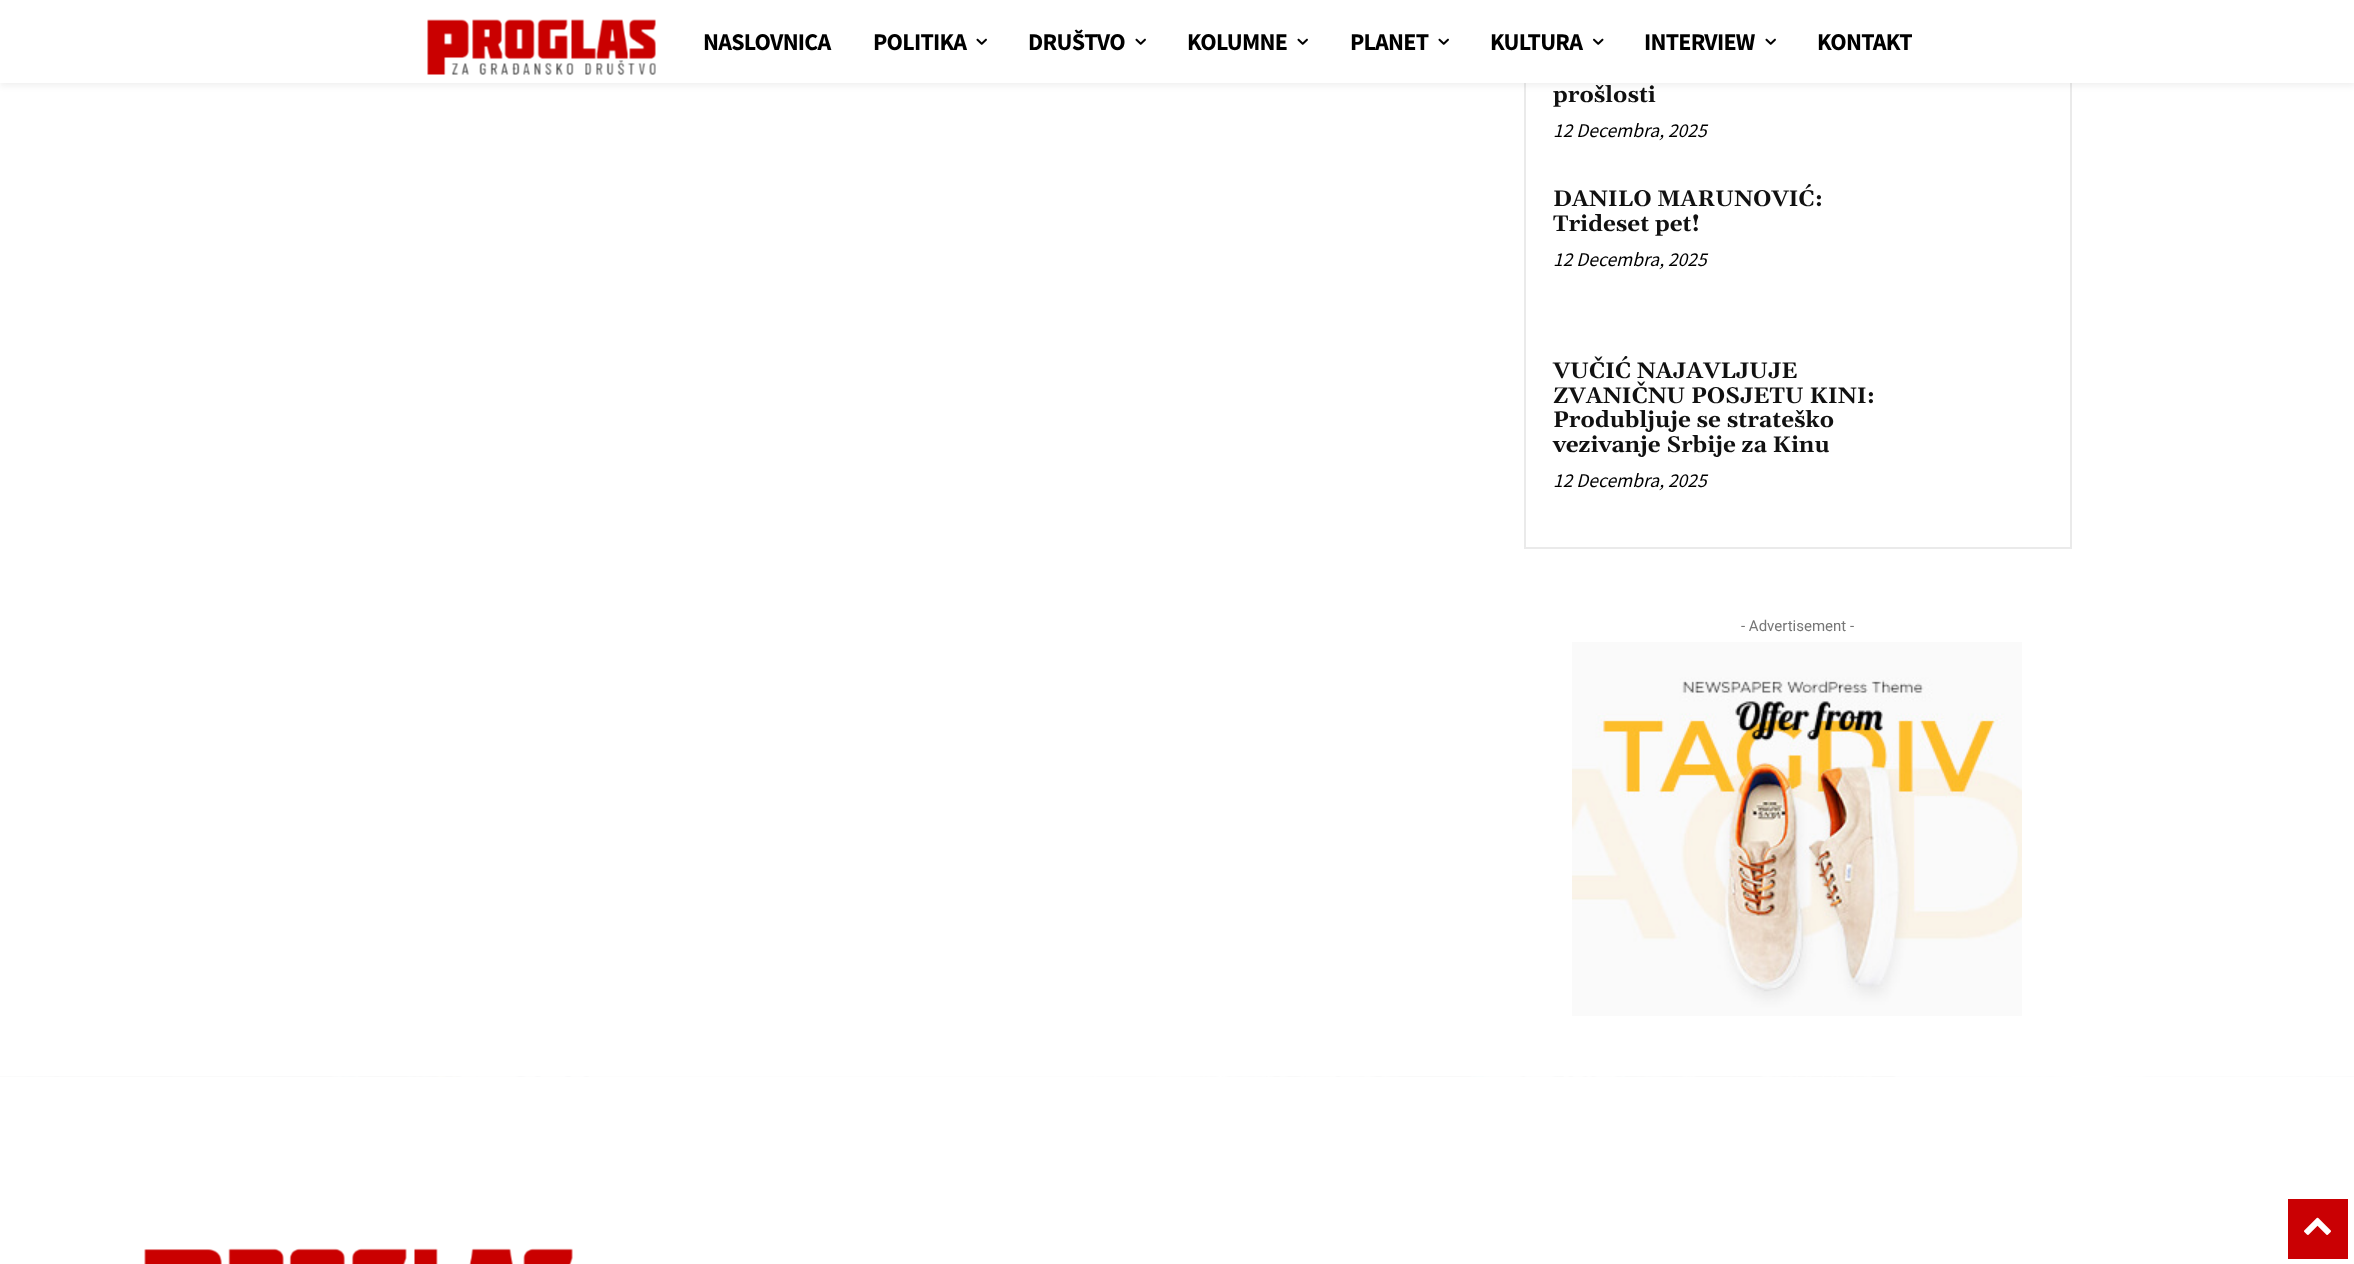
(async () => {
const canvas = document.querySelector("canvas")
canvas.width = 2354
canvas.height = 1264
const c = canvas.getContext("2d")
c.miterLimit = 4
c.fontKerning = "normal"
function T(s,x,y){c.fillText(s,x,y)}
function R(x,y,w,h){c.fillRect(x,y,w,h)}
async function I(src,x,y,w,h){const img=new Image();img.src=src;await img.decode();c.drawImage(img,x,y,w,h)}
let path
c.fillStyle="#fff"
R(0,0,2354,1264)
c.strokeStyle="#eaeaea"
c.lineWidth=2
c.strokeRect(1525,-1,546,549)
c.fillStyle="#fffffff7"
R(1524,0,548,83)
await I("1.png",427,19,229,56)
c.save()
path = new Path2D("M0 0h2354v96h-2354zm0 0h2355v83h-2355z")
c.clip(path,"evenodd")
c.fillStyle="#0000000f"
c.filter="blur(3px)"
c.beginPath()
c.rect(0,3,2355,83)
c.fill()
c.filter="none"
c.restore()
c.letterSpacing="-0.75px"
c.font="bold 24px Source Sans Pro"
c.fillStyle="#000"
T("NASLOVNICA",703,50)
T("POLITIKA",873,50)
await I("2.png",976,38,11,7)
T("DRUŠTVO",1028,50)
await I("2.png",1135,38,11,7)
T("KOLUMNE",1187,50)
await I("2.png",1297,38,11,7)
T("PLANET",1350,50)
await I("2.png",1438,38,11,7)
T("KULTURA",1490,50)
await I("3.png",1593,38,11,7)
T("INTERVIEW",1644,50)
await I("4.png",1765,38,11,7)
T("KONTAKT",1817,50)
c.letterSpacing="0px"
c.font="bold 22.5px Gelasio"
c.fillStyle="#111"
T("prošlosti",1553,102)
c.font="italic 19.5px Source Sans Pro"
c.fillStyle="#000"
T("12 Decembra, 2025",1553,137)
c.font="bold 22.5px Gelasio"
c.fillStyle="#111"
T("DANILO MARUNOVIĆ:",1553,206)
T("Trideset pet!",1553,231)
c.font="italic 19.5px Source Sans Pro"
c.fillStyle="#000"
T("12 Decembra, 2025",1553,266)
c.font="bold 22.5px Gelasio"
c.fillStyle="#111"
T("VUČIĆ NAJAVLJUJE",1553,378)
T("ZVANIČNU POSJETU KINI:",1553,403)
T("Produbljuje se strateško",1553,427)
T("vezivanje Srbije za Kinu",1553,452)
c.font="italic 19.5px Source Sans Pro"
c.fillStyle="#000"
T("12 Decembra, 2025",1553,487)
c.font="15px Roboto"
c.fillStyle="#767676"
T("- Advertisement -",1741,631)
await I("5.png",1572,642,450,374)
await I("6.png",0,1076,2354,1)
await I("7.png",144,1248,429,16)
c.fillStyle="#ca0003"
R(2288,1199,60,60)
await I("8.png",2304,1217,27,18)
})()
